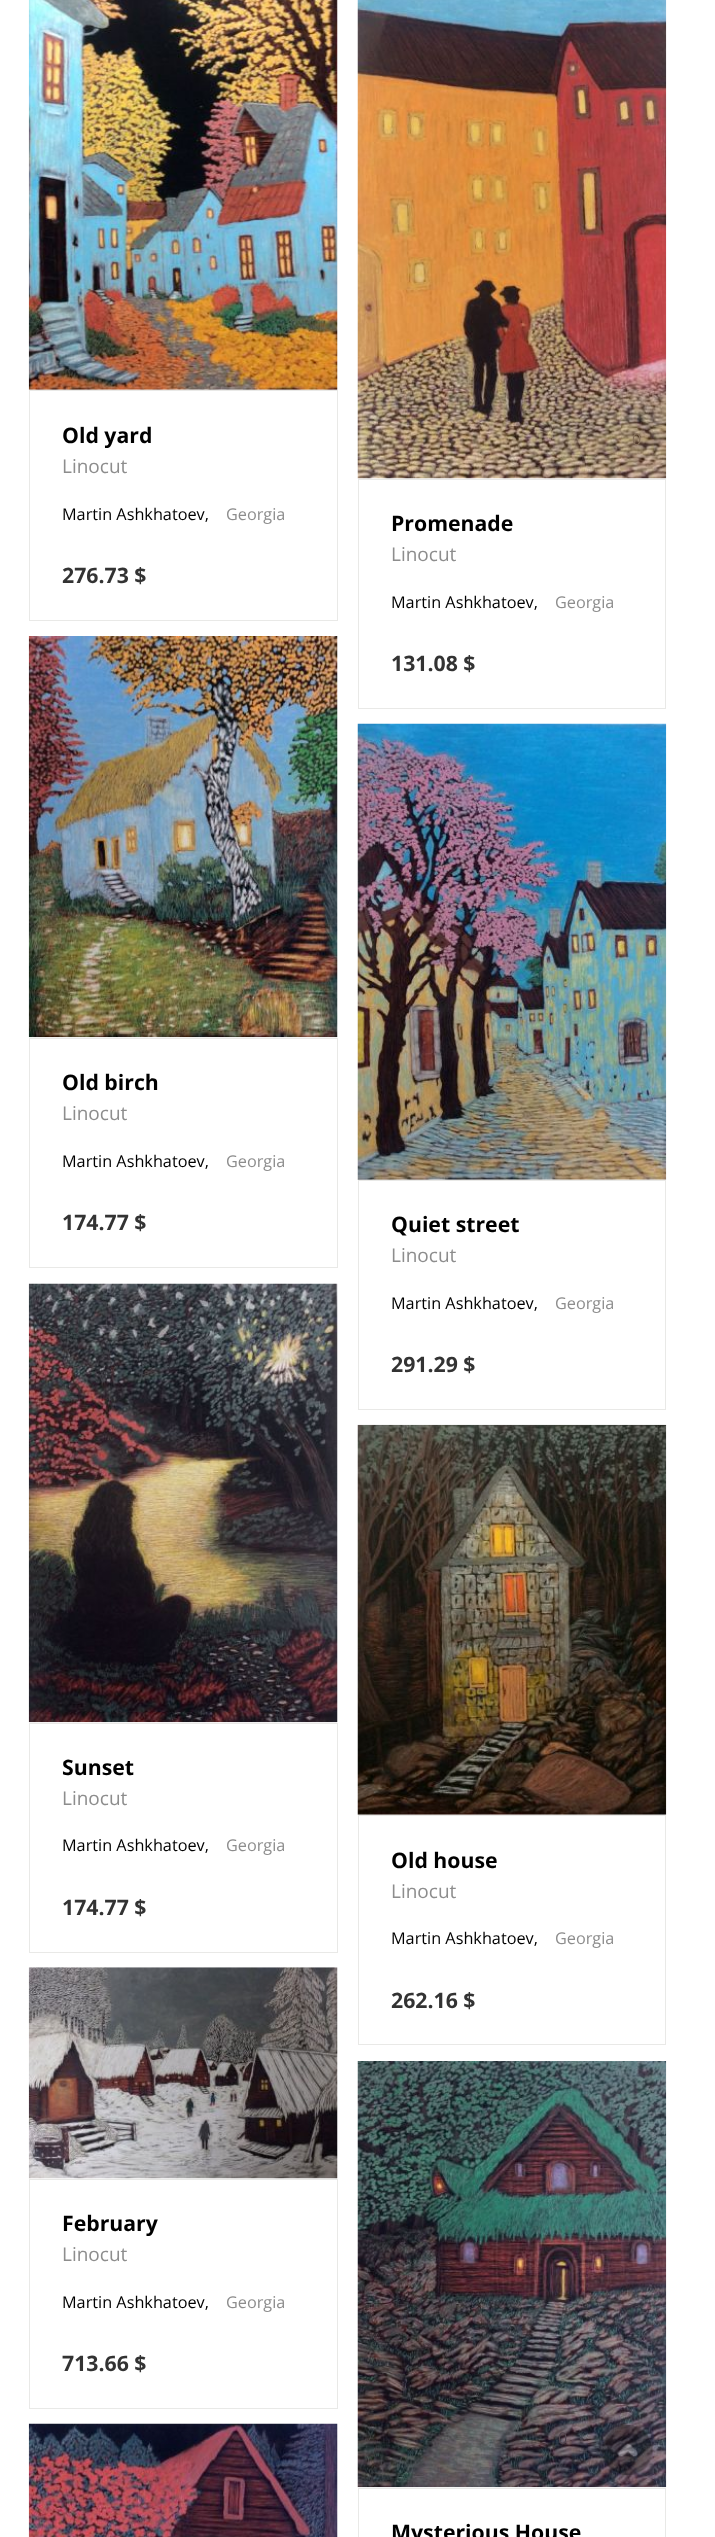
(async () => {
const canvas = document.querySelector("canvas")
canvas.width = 715
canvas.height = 2537
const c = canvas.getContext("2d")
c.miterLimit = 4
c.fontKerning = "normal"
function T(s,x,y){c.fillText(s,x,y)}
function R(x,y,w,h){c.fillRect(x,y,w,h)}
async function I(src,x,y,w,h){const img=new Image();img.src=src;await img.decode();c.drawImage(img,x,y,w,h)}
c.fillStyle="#fff"
R(0,0,715,2537)
await I("1.png",28,0,310,390)
c.strokeStyle="#e9e9e7"
c.strokeRect(29.5,390.5,308,230)
c.font="bold 21.25px Open Sans"
c.fillStyle="#000"
T("Old yard",62,443)
c.font="19px Open Sans"
c.fillStyle="#8d8d8d"
T("Linocut",62,473)
c.font="16.25px Open Sans"
c.fillStyle="#000"
T("Martin Ashkhatoev,",62,520)
c.fillStyle="#8d8d8d"
T("Georgia",226,520)
c.font="bold 21.25px Open Sans"
c.fillStyle="#333"
T("276.73 $",62,583)
await I("2.png",357,0,310,479)
c.font="16.25px Open Sans"
c.fillStyle="#856f59"
T("0",632,445)
c.strokeRect(358.5,479.5,307,229)
c.font="bold 21.25px Open Sans"
c.fillStyle="#000"
T("Promenade",391,531)
c.font="19px Open Sans"
c.fillStyle="#8d8d8d"
T("Linocut",391,561)
c.font="16.25px Open Sans"
c.fillStyle="#000"
T("Martin Ashkhatoev,",391,608)
c.fillStyle="#8d8d8d"
T("Georgia",555,608)
c.font="bold 21.25px Open Sans"
c.fillStyle="#333"
T("131.08 $",391,671)
await I("3.png",28,636,310,402)
c.strokeRect(29.5,1038.5,308,229)
c.fillStyle="#000"
T("Old birch",62,1090)
c.font="19px Open Sans"
c.fillStyle="#8d8d8d"
T("Linocut",62,1120)
c.font="16.25px Open Sans"
c.fillStyle="#000"
T("Martin Ashkhatoev,",62,1167)
c.fillStyle="#8d8d8d"
T("Georgia",226,1167)
c.font="bold 21.25px Open Sans"
c.fillStyle="#333"
T("174.77 $",62,1230)
await I("4.png",357,723,310,457)
c.strokeRect(358.5,1180.5,307,229)
c.fillStyle="#000"
T("Quiet street",391,1232)
c.font="19px Open Sans"
c.fillStyle="#8d8d8d"
T("Linocut",391,1262)
c.font="16.25px Open Sans"
c.fillStyle="#000"
T("Martin Ashkhatoev,",391,1309)
c.fillStyle="#8d8d8d"
T("Georgia",555,1309)
c.font="bold 21.25px Open Sans"
c.fillStyle="#333"
T("291.29 $",391,1372)
await I("5.png",28,1283,310,440)
c.strokeRect(29.5,1723.5,308,229)
c.fillStyle="#000"
T("Sunset",62,1775)
c.font="19px Open Sans"
c.fillStyle="#8d8d8d"
T("Linocut",62,1805)
c.font="16.25px Open Sans"
c.fillStyle="#000"
T("Martin Ashkhatoev,",62,1851)
c.fillStyle="#8d8d8d"
T("Georgia",226,1851)
c.font="bold 21.25px Open Sans"
c.fillStyle="#333"
T("174.77 $",62,1915)
await I("6.png",357,1424,310,391)
c.strokeRect(358.5,1815.5,307,229)
c.fillStyle="#000"
T("Old house",391,1868)
c.font="19px Open Sans"
c.fillStyle="#8d8d8d"
T("Linocut",391,1898)
c.font="16.25px Open Sans"
c.fillStyle="#000"
T("Martin Ashkhatoev,",391,1944)
c.fillStyle="#8d8d8d"
T("Georgia",555,1944)
c.font="bold 21.25px Open Sans"
c.fillStyle="#333"
T("262.16 $",391,2008)
await I("7.png",28,1967,310,212)
c.strokeRect(29.5,2179.5,308,229)
c.fillStyle="#000"
T("February",62,2231)
c.font="19px Open Sans"
c.fillStyle="#8d8d8d"
T("Linocut",62,2261)
c.font="16.25px Open Sans"
c.fillStyle="#000"
T("Martin Ashkhatoev,",62,2308)
c.fillStyle="#8d8d8d"
T("Georgia",226,2308)
c.font="bold 21.25px Open Sans"
c.fillStyle="#333"
T("713.66 $",62,2371)
await I("8.png",28,2423,310,114)
await I("9.png",357,2061,310,427)
c.font="16.25px Open Sans"
c.fillStyle="#51454e"
T("0",558,2444)
c.strokeRect(358.5,2488.5,307,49)
c.font="bold 21.25px Open Sans"
c.fillStyle="#000"
T("Mysterious House",391,2540)
await I("10.png",602,2425,51,50)
})()
